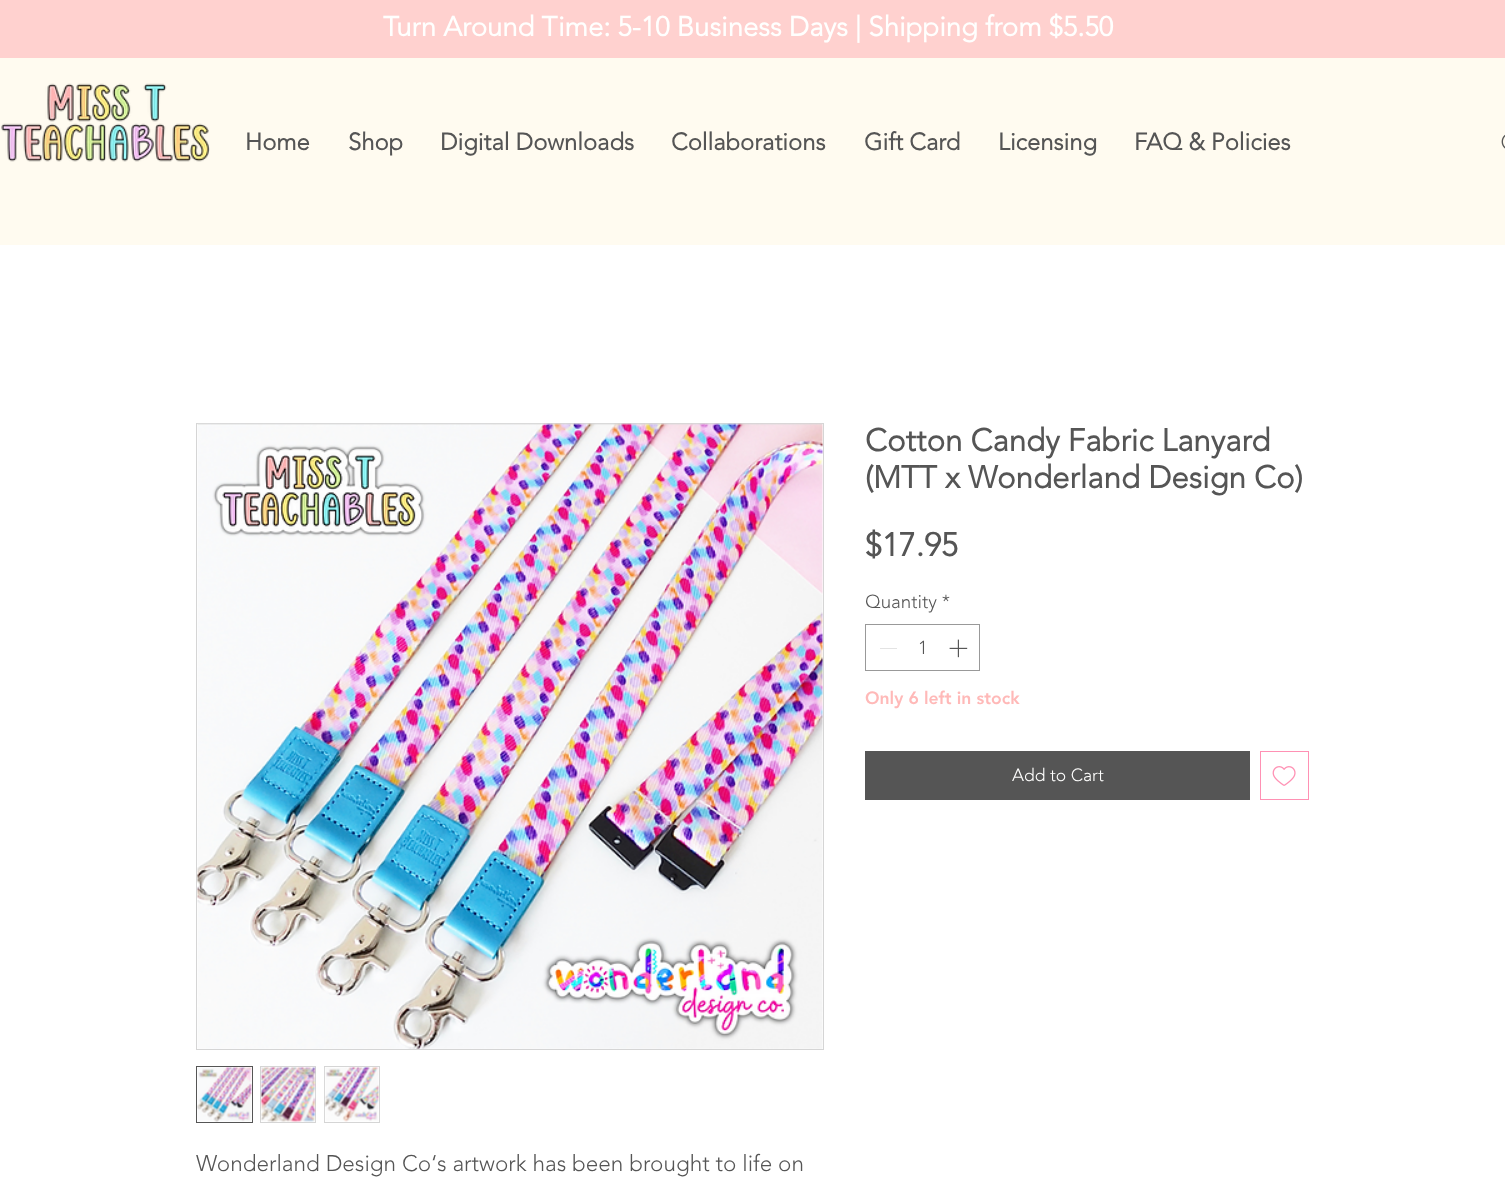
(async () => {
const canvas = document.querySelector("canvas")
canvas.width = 1505
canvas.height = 1185
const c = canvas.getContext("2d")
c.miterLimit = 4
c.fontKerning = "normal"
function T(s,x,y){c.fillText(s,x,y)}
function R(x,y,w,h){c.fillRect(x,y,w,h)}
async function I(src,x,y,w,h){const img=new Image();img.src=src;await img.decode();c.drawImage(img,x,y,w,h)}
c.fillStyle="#fff"
R(0,0,1505,1185)
c.fillStyle="#ffd1cf"
R(0,0,1505,58)
c.font="bold 27.5px 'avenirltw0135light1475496'"
c.fillStyle="#fffffe"
T("Turn Around Time: 5-10 Business Days | Shipping from $5.50",383,36)
c.fillStyle="#fffbf0"
R(0,58,1505,187)
await I("1.png",1,83,209,79)
c.font="bold 23.75px 'avenirltw0135light1475496'"
c.fillStyle="#555"
T("Home",245,150)
T("Shop",348,150)
T("Digital Downloads",440,150)
T("Collaborations",671,150)
T("Gift Card",864,150)
T("Licensing",998,150)
T("FAQ & Policies",1134,150)
await I("2.png",1501,134,4,15)
c.font="bold 31.25px 'avenirltw0135light1475496'"
T("Cotton Candy Fabric Lanyard",865,451)
T("(MTT x Wonderland Design Co)",865,488)
c.font="bold 32.5px 'avenirltw0135light1475496'"
T("$17.95",865,556)
c.font="300 18.75px 'avenirltw0135light1475496'"
T("Quantity *",865,608)
c.strokeStyle="#999"
c.strokeRect(865.5,624.5,114,46)
c.fillStyle="#e3e3e3"
R(880,648,17,1)
c.fillStyle="#555"
T("1",918,654)
await I("3.png",949,639,19,19)
c.font="900 17.5px 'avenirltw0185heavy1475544'"
c.fillStyle="#ffb9b8"
T("Only 6 left in stock",865,704)
c.fillStyle="#555"
R(865,751,385,49)
c.font="300 17.5px 'avenirltw0135light1475496'"
c.fillStyle="#fffffe"
T("Add to Cart",1012,781)
c.strokeStyle="#ff91b4"
c.strokeRect(1260.5,751.5,48,48)
await I("4.png",1272,766,24,20)
c.strokeStyle="#d5d5d5"
c.strokeRect(196.5,423.5,627,626)
await I("5.png",197,423,626,626)
c.strokeStyle="#555"
c.strokeRect(196.5,1066.5,56,56)
await I("6.png",197,1067,55,55)
c.strokeStyle="#d5d5d5"
c.strokeRect(260.5,1066.5,55,56)
await I("7.png",260,1067,56,55)
c.strokeRect(324.5,1066.5,55,56)
await I("8.png",324,1067,55,55)
c.font="300 22.5px 'avenirltw0135light1475496'"
c.fillStyle="#555"
T("Wonderland Design Co‘s artwork has been brought to life on",196,1171)
})()
